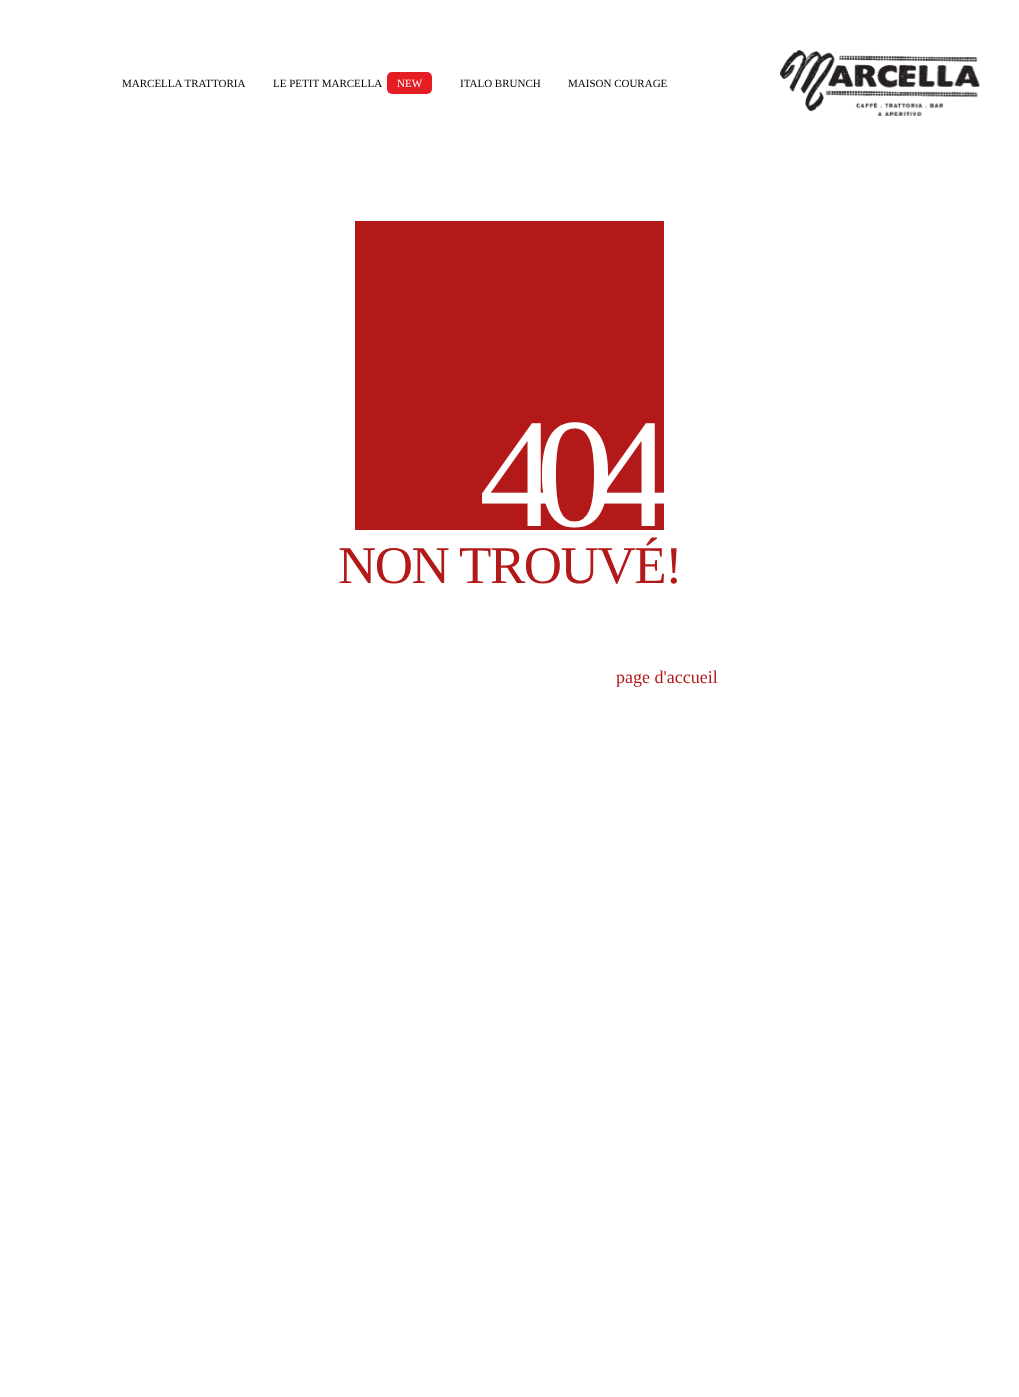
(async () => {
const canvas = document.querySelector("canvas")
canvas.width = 1019
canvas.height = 1397
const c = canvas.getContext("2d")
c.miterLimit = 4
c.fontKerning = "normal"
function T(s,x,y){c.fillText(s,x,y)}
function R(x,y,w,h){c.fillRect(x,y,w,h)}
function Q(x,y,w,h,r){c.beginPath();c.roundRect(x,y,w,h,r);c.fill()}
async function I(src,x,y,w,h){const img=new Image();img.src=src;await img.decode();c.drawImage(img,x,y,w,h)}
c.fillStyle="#fff"
R(0,0,1019,1397)
c.font="11px Liberation Serif"
c.fillStyle="#000"
T("MARCELLA TRATTORIA",122,87)
T("LE PETIT MARCELLA",273,87)
c.fillStyle="#e41d22"
Q(387,72,45,22,5)
c.fillStyle="#fff"
T("NEW",397,87)
c.fillStyle="#000"
T("ITALO BRUNCH",460,87)
T("MAISON COURAGE",568,87)
await I("1.png",780,50,200,66)
c.fillStyle="#b21918"
R(355,221,309,309)
c.letterSpacing="-30px"
c.font="156px Liberation Serif"
c.fillStyle="#fff"
T("4 0 4",479,526)
c.letterSpacing="-1.5px"
c.font="53px Liberation Serif"
c.fillStyle="#b21918"
T("NON TROUVÉ!",338,583)
c.letterSpacing="0px"
c.font="18px Liberation Serif"
T("page d'accueil",616,683)
})()
